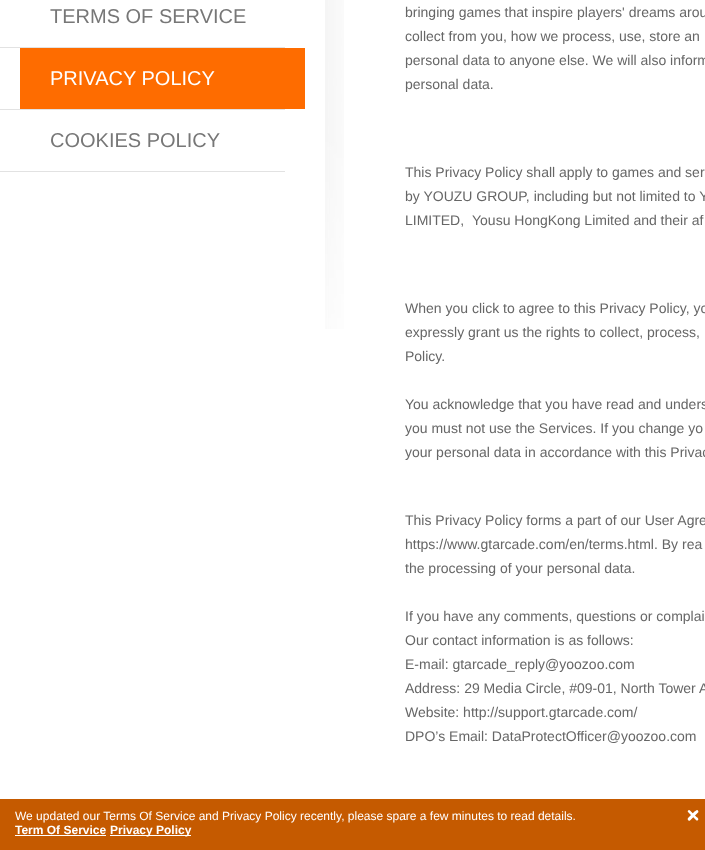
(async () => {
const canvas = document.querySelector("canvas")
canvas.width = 705
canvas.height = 850
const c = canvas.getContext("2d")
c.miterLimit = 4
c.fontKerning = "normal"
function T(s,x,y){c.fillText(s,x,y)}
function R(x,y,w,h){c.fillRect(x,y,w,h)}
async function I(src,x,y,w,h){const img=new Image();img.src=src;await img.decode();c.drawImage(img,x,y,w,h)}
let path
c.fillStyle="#fff"
R(0,0,705,850)
await I("1.png",325,0,19,329)
c.fillStyle="#e2e2e2"
R(0,47,285,1)
c.font="20px Liberation Sans"
c.fillStyle="#777"
T("TERMS OF SERVICE",50,23)
c.fillStyle="#e2e2e2"
R(0,109,285,1)
c.fillStyle="#fe6c00"
R(20,48,285,61)
c.fillStyle="#fff"
T("PRIVACY POLICY",50,85)
c.fillStyle="#e2e2e2"
R(0,171,285,1)
c.fillStyle="#777"
T("COOKIES POLICY",50,147)
c.font="14px Liberation Sans"
c.fillStyle="#666"
T("bringing games that inspire players' dreams arou",405,17)
T("collect from you, how we process, use, store an",405,41)
T("personal data to anyone else. We will also inform",405,65)
T("personal data.",405,89)
T("This Privacy Policy shall apply to games and ser",405,177)
T("by YOUZU GROUP, including but not limited to Y",405,201)
T("LIMITED,",405,225)
T("Yousu HongKong Limited and their af",472,225)
T("When you click to agree to this Privacy Policy, yo",405,313)
T("expressly grant us the rights to collect, process,",405,337)
T("Policy.",405,361)
T("You acknowledge that you have read and unders",405,409)
T("you must not use the Services. If you change yo",405,433)
T("your personal data in accordance with this Privac",405,457)
T("This Privacy Policy forms a part of our User Agre",405,525)
T("https://www.gtarcade.com/en/terms.html. By rea",405,549)
T("the processing of your personal data.",405,573)
T("If you have any comments, questions or complai",405,621)
T("Our contact information is as follows:",405,645)
T("E-mail: gtarcade_reply@yoozoo.com",405,669)
T("Address: 29 Media Circle, #09-01, North Tower A",405,693)
T("Website: http://support.gtarcade.com/",405,717)
T("DPO’s Email: DataProtectOfficer@yoozoo.com",405,741)
c.fillStyle="#c55a00"
R(0,799,705,51)
c.font="12px Liberation Sans"
c.fillStyle="#fff"
T("We updated our Terms Of Service and Privacy Policy recently, please spare a few minutes to read details.",15,820)
c.font="bold 12px Liberation Sans"
T("Term Of Service",15,834)
R(15,835,91,1)
R(110,835,81,1)
T("Privacy Policy",110,834)
path = new Path2D("M690 810.5l6.5 6.5c1 .5 3 2.5 1 3.5h-1l-8.5-8.5c-1-1 1-3 2-1.5z")
c.fill(path)
path = new Path2D("M688 818l6.5-6.5c1-.5 2.5-2.5 3.5-1l.5 1.5l-8.5 8.5c-1.5 1-3-1-2-2.5z")
c.fill(path)
})()
